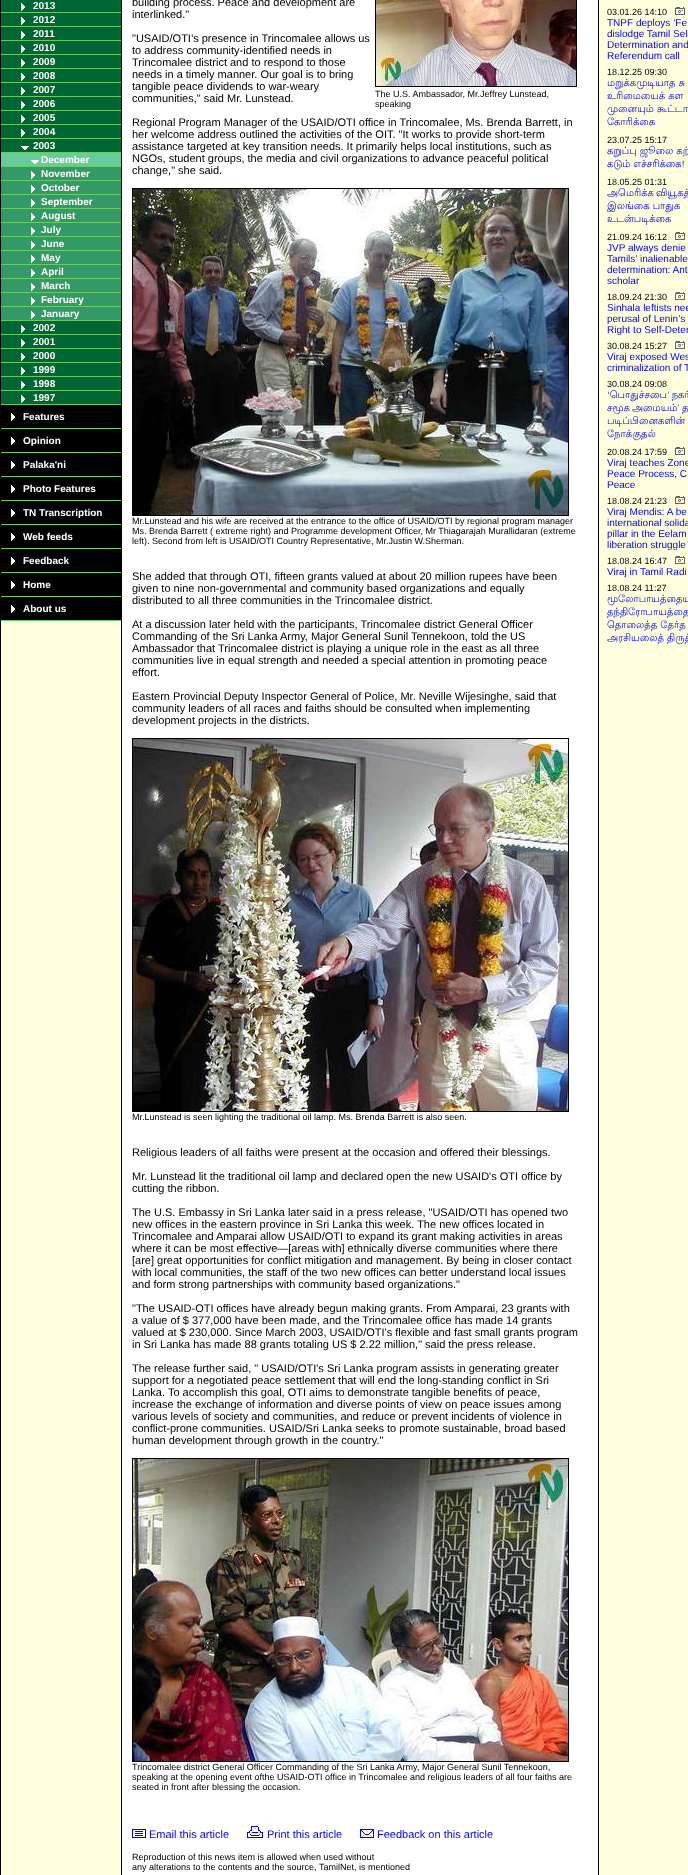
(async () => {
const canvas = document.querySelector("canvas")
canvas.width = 688
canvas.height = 1875
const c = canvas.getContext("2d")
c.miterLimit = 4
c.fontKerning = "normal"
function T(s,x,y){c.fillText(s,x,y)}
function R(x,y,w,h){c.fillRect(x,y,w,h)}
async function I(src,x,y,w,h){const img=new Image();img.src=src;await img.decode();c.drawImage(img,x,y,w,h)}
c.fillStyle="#ffd"
R(0,0,688,1875)
c.fillStyle="#000"
R(0,0,1,1875)
c.fillStyle="#063"
R(1,0,120,12)
await I("1.png",21,3,4,8)
c.fillStyle="#6c6"
R(1,12,120,1)
c.font="bold 10px Liberation Sans"
c.fillStyle="#fff"
T("2013",33,9)
c.fillStyle="#063"
R(1,13,120,13)
await I("1.png",21,17,4,8)
c.fillStyle="#6c6"
R(1,26,120,1)
c.fillStyle="#fff"
T("2012",33,23)
c.fillStyle="#063"
R(1,27,120,13)
await I("1.png",21,31,4,8)
c.fillStyle="#6c6"
R(1,40,120,1)
c.fillStyle="#fff"
T("2011",33,37)
c.fillStyle="#063"
R(1,41,120,13)
await I("1.png",21,45,4,8)
c.fillStyle="#6c6"
R(1,54,120,1)
c.fillStyle="#fff"
T("2010",33,51)
c.fillStyle="#063"
R(1,55,120,13)
await I("1.png",21,59,4,8)
c.fillStyle="#6c6"
R(1,68,120,1)
c.fillStyle="#fff"
T("2009",33,65)
c.fillStyle="#063"
R(1,69,120,13)
await I("1.png",21,73,4,8)
c.fillStyle="#6c6"
R(1,82,120,1)
c.fillStyle="#fff"
T("2008",33,79)
c.fillStyle="#063"
R(1,83,120,13)
await I("1.png",21,87,4,8)
c.fillStyle="#6c6"
R(1,96,120,1)
c.fillStyle="#fff"
T("2007",33,93)
c.fillStyle="#063"
R(1,97,120,13)
await I("1.png",21,101,4,8)
c.fillStyle="#6c6"
R(1,110,120,1)
c.fillStyle="#fff"
T("2006",33,107)
c.fillStyle="#063"
R(1,111,120,13)
await I("1.png",21,115,4,8)
c.fillStyle="#6c6"
R(1,124,120,1)
c.fillStyle="#fff"
T("2005",33,121)
c.fillStyle="#063"
R(1,125,120,13)
await I("1.png",21,129,4,8)
c.fillStyle="#6c6"
R(1,138,120,1)
c.fillStyle="#fff"
T("2004",33,135)
c.fillStyle="#063"
R(1,139,120,13)
await I("2.png",21,146,8,4)
c.fillStyle="#6c6"
R(1,152,120,1)
c.fillStyle="#fff"
T("2003",33,149)
c.fillStyle="#6c9"
R(1,153,120,13)
await I("3.png",31,160,8,4)
c.fillStyle="#6c6"
R(1,166,120,1)
c.fillStyle="#fff"
T("December",41,163)
c.fillStyle="#396"
R(1,167,120,13)
await I("4.png",31,171,4,8)
c.fillStyle="#6c6"
R(1,180,120,1)
c.fillStyle="#fff"
T("November",41,177)
c.fillStyle="#396"
R(1,181,120,13)
await I("4.png",31,185,4,8)
c.fillStyle="#6c6"
R(1,194,120,1)
c.fillStyle="#fff"
T("October",41,191)
c.fillStyle="#396"
R(1,195,120,13)
await I("4.png",31,199,4,8)
c.fillStyle="#6c6"
R(1,208,120,1)
c.fillStyle="#fff"
T("September",41,205)
c.fillStyle="#396"
R(1,209,120,13)
await I("4.png",31,213,4,8)
c.fillStyle="#6c6"
R(1,222,120,1)
c.fillStyle="#fff"
T("August",41,219)
c.fillStyle="#396"
R(1,223,120,13)
await I("4.png",31,227,4,8)
c.fillStyle="#6c6"
R(1,236,120,1)
c.fillStyle="#fff"
T("July",41,233)
c.fillStyle="#396"
R(1,237,120,13)
await I("4.png",31,241,4,8)
c.fillStyle="#6c6"
R(1,250,120,1)
c.fillStyle="#fff"
T("June",41,247)
c.fillStyle="#396"
R(1,251,120,13)
await I("4.png",31,255,4,8)
c.fillStyle="#6c6"
R(1,264,120,1)
c.fillStyle="#fff"
T("May",41,261)
c.fillStyle="#396"
R(1,265,120,13)
await I("4.png",31,269,4,8)
c.fillStyle="#6c6"
R(1,278,120,1)
c.fillStyle="#fff"
T("April",41,275)
c.fillStyle="#396"
R(1,279,120,13)
await I("4.png",31,283,4,8)
c.fillStyle="#6c6"
R(1,292,120,1)
c.fillStyle="#fff"
T("March",41,289)
c.fillStyle="#396"
R(1,293,120,13)
await I("4.png",31,297,4,8)
c.fillStyle="#6c6"
R(1,306,120,1)
c.fillStyle="#fff"
T("February",41,303)
c.fillStyle="#396"
R(1,307,120,13)
await I("4.png",31,311,4,8)
c.fillStyle="#6c6"
R(1,320,120,1)
c.fillStyle="#fff"
T("January",41,317)
c.fillStyle="#063"
R(1,321,120,13)
await I("1.png",21,325,4,8)
c.fillStyle="#6c6"
R(1,334,120,1)
c.fillStyle="#fff"
T("2002",33,331)
c.fillStyle="#063"
R(1,335,120,13)
await I("1.png",21,339,4,8)
c.fillStyle="#6c6"
R(1,348,120,1)
c.fillStyle="#fff"
T("2001",33,345)
c.fillStyle="#063"
R(1,349,120,13)
await I("1.png",21,353,4,8)
c.fillStyle="#6c6"
R(1,362,120,1)
c.fillStyle="#fff"
T("2000",33,359)
c.fillStyle="#063"
R(1,363,120,13)
await I("1.png",21,367,4,8)
c.fillStyle="#6c6"
R(1,376,120,1)
c.fillStyle="#fff"
T("1999",33,373)
c.fillStyle="#063"
R(1,377,120,13)
await I("1.png",21,381,4,8)
c.fillStyle="#6c6"
R(1,390,120,1)
c.fillStyle="#fff"
T("1998",33,387)
c.fillStyle="#063"
R(1,391,120,13)
await I("1.png",21,395,4,8)
c.fillStyle="#6c6"
R(1,404,120,1)
c.fillStyle="#fff"
T("1997",33,401)
c.fillStyle="#000"
R(1,405,120,23)
await I("5.png",11,413,4,8)
c.fillStyle="#6c6"
R(1,428,120,1)
c.fillStyle="#fff"
T("Features",23,420)
c.fillStyle="#000"
R(1,429,120,23)
await I("5.png",11,437,4,8)
c.fillStyle="#6c6"
R(1,452,120,1)
c.fillStyle="#fff"
T("Opinion",23,444)
c.fillStyle="#000"
R(1,453,120,23)
await I("5.png",11,461,4,8)
c.fillStyle="#6c6"
R(1,476,120,1)
c.fillStyle="#fff"
T("Palaka'ni",23,468)
c.fillStyle="#000"
R(1,477,120,23)
await I("5.png",11,485,4,8)
c.fillStyle="#6c6"
R(1,500,120,1)
c.fillStyle="#fff"
T("Photo Features",23,492)
c.fillStyle="#000"
R(1,501,120,23)
await I("5.png",11,509,4,8)
c.fillStyle="#6c6"
R(1,524,120,1)
c.fillStyle="#fff"
T("TN Transcription",23,516)
c.fillStyle="#000"
R(1,525,120,23)
await I("5.png",11,533,4,8)
c.fillStyle="#6c6"
R(1,548,120,1)
c.fillStyle="#fff"
T("Web feeds",23,540)
c.fillStyle="#000"
R(1,549,120,23)
await I("5.png",11,557,4,8)
c.fillStyle="#6c6"
R(1,572,120,1)
c.fillStyle="#fff"
T("Feedback",23,564)
c.fillStyle="#000"
R(1,573,120,23)
await I("5.png",11,581,4,8)
c.fillStyle="#6c6"
R(1,596,120,1)
c.fillStyle="#fff"
T("Home",23,588)
c.fillStyle="#000"
R(1,597,120,23)
await I("5.png",11,605,4,8)
c.fillStyle="#6c6"
R(1,620,120,1)
c.fillStyle="#fff"
T("About us",23,612)
R(122,0,476,1875)
c.fillStyle="#000"
R(598,0,1,1875)
R(121,0,1,1875)
c.font="11px Liberation Sans"
T("building process. Peace and development are",132,6)
T("interlinked.\"",132,18)
T("\"USAID/OTI’s presence in Trincomalee allows us",132,42)
T("to address community-identified needs in",132,54)
T("Trincomalee district and to respond to those",132,66)
T("needs in a timely manner. Our goal is to bring",132,78)
T("tangible peace dividends to war-weary",132,90)
T("communities,\" said Mr. Lunstead.",132,102)
await I("6.png",375,0,202,87)
c.font="9px Liberation Sans"
T("The U.S. Ambassador, Mr.Jeffrey Lunstead,",375,97)
T("speaking",375,107)
c.font="11px Liberation Sans"
T("Regional Program Manager of the USAID/OTI office in Trincomalee, Ms. Brenda Barrett, in",132,126)
T("her welcome address outlined the activities of the OIT. \"It works to provide short-term",132,138)
T("assistance targeted at key transition needs. It primarily helps local institutions, such as",132,150)
T("NGOs, student groups, the media and civil organizations to advance peaceful political",132,162)
T("change,\" she said.",132,174)
await I("7.png",132,188,437,328)
c.font="9px Liberation Sans"
T("Mr.Lunstead and his wife are received at the entrance to the office of USAID/OTI by regional program manager",132,524)
T("Ms. Brenda Barrett ( extreme right) and Programme development Officer, Mr Thiagarajah Murallidaran (extreme",132,534)
T("left). Second from left is USAID/OTI Country Representative, Mr.Justin W.Sherman.",132,544)
c.font="11px Liberation Sans"
T("She added that through OTI, fifteen grants valued at about 20 million rupees have been",132,580)
T("given to nine non-governmental and community based organizations and equally",132,592)
T("distributed to all three communities in the Trincomalee district.",132,604)
T("At a discussion later held with the participants, Trincomalee district General Officer",132,628)
T("Commanding of the Sri Lanka Army, Major General Sunil Tennekoon, told the US",132,640)
T("Ambassador that Trincomalee district is playing a unique role in the east as all three",132,652)
T("communities live in equal strength and needed a special attention in promoting peace",132,664)
T("effort.",132,676)
T("Eastern Provincial Deputy Inspector General of Police, Mr. Neville Wijesinghe, said that",132,700)
T("community leaders of all races and faiths should be consulted when implementing",132,712)
T("development projects in the districts.",132,724)
await I("8.png",132,738,437,374)
c.font="9px Liberation Sans"
T("Mr.Lunstead is seen lighting the traditional oil lamp. Ms. Brenda Barrett is also seen.",132,1120)
c.font="11px Liberation Sans"
T("Religious leaders of all faiths were present at the occasion and offered their blessings.",132,1156)
T("Mr. Lunstead lit the traditional oil lamp and declared open the new USAID's OTI office by",132,1180)
T("cutting the ribbon.",132,1192)
T("The U.S. Embassy in Sri Lanka later said in a press release, \"USAID/OTI has opened two",132,1216)
T("new offices in the eastern province in Sri Lanka this week. The new offices located in",132,1228)
T("Trincomalee and Amparai allow USAID/OTI to expand its grant making activities in areas",132,1240)
T("where it can be most effective—[areas with] ethnically diverse communities where there",132,1252)
T("[are] great opportunities for conflict mitigation and management. By being in closer contact",132,1264)
T("with local communities, the staff of the two new offices can better understand local issues",132,1276)
T("and form strong partnerships with community based organizations.\"",132,1288)
T("\"The USAID-OTI offices have already begun making grants. From Amparai, 23 grants with",132,1312)
T("a value of $ 377,000 have been made, and the Trincomalee office has made 14 grants",132,1324)
T("valued at $ 230,000. Since March 2003, USAID/OTI's flexible and fast small grants program",132,1336)
T("in Sri Lanka has made 88 grants totaling US $ 2.22 million,\" said the press release.",132,1348)
T("The release further said, \" USAID/OTI's Sri Lanka program assists in generating greater",132,1372)
T("support for a negotiated peace settlement that will end the long-standing conflict in Sri",132,1384)
T("Lanka. To accomplish this goal, OTI aims to demonstrate tangible benefits of peace,",132,1396)
T("increase the exchange of information and diverse points of view on peace issues among",132,1408)
T("various levels of society and communities, and reduce or prevent incidents of violence in",132,1420)
T("conflict-prone communities. USAID/Sri Lanka seeks to promote sustainable, broad based",132,1432)
T("human development through growth in the country.\"",132,1444)
await I("9.png",132,1458,437,304)
c.font="9px Liberation Sans"
T("Trincomalee district General Officer Commanding of the Sri Lanka Army, Major General Sunil Tennekoon,",132,1770)
T("speaking at the opening event ofthe USAID-OTI office in Trincomalee and religious leaders of all four faiths are",132,1780)
T("seated in front after blessing the occasion.",132,1790)
await I("10.png",132,1829,14,9)
c.font="11px Liberation Sans"
c.fillStyle="#00f"
T("Email this article",149,1838)
await I("11.png",247,1826,16,12)
T("Print this article",267,1838)
await I("12.png",360,1829,14,9)
T("Feedback on this article",377,1838)
c.font="9px Liberation Sans"
c.fillStyle="#000"
T("03.01.26 14:10",607,15)
await I("13.png",675,7,10,8)
c.font="10px Liberation Sans"
c.fillStyle="#00f"
T("TNPF deploys ‘Fe",607,26)
T("dislodge Tamil Sel",607,37)
T("Determination and",607,48)
T("Referendum call",607,59)
c.font="9px Liberation Sans"
c.fillStyle="#000"
T("18.12.25 09:30",607,75)
c.font="10px Lohit Tamil"
c.fillStyle="#00f"
T("மறுக்கமுடியாத சு",607,86)
T("உரிமையைக் கள",607,99)
T("முனையும் கூட்டா",607,112)
T("கோரிக்கை",607,125)
c.font="9px Liberation Sans"
c.fillStyle="#000"
T("23.07.25 15:17",607,143)
c.font="10px Lohit Tamil"
c.fillStyle="#00f"
T("கறுப்பு ஜூலை கற்",607,154)
T("கடும் எச்சரிக்கை!",607,167)
c.font="9px Liberation Sans"
c.fillStyle="#000"
T("18.05.25 01:31",607,185)
c.wordSpacing="-1px"
c.font="10px Lohit Tamil"
c.fillStyle="#00f"
T("அமெரிக்க வியூகத்",607,196)
c.wordSpacing="0px"
T("இலங்கை பாதுக",607,209)
T("உடன்படிக்கை",607,222)
c.font="9px Liberation Sans"
c.fillStyle="#000"
T("21.09.24 16:12",607,240)
await I("13.png",675,232,10,8)
c.font="10px Liberation Sans"
c.fillStyle="#00f"
T("JVP always denie",607,251)
T("Tamils’ inalienable",607,262)
T("determination: Ant",607,273)
T("scholar",607,284)
c.font="9px Liberation Sans"
c.fillStyle="#000"
T("18.09.24 21:30",607,300)
await I("13.png",675,292,10,8)
c.font="10px Liberation Sans"
c.fillStyle="#00f"
T("Sinhala leftists nee",607,311)
T("perusal of Lenin’s",607,322)
T("Right to Self-Deter",607,333)
c.font="9px Liberation Sans"
c.fillStyle="#000"
T("30.08.24 15:27",607,349)
await I("13.png",675,341,10,8)
c.font="10px Liberation Sans"
c.fillStyle="#00f"
T("Viraj exposed Wes",607,360)
T("criminalization of T",607,371)
c.font="9px Liberation Sans"
c.fillStyle="#000"
T("30.08.24 09:08",607,387)
c.wordSpacing="-1px"
c.font="10px Lohit Tamil"
c.fillStyle="#00f"
T("‘பொதுச்சபை’ நகர்",607,398)
T("சமூக அமையம்’ த",607,411)
c.wordSpacing="0px"
T("படிப்பினைகளின்",607,424)
T("நோக்குதல்",607,437)
c.font="9px Liberation Sans"
c.fillStyle="#000"
T("20.08.24 17:59",607,455)
await I("13.png",675,447,10,8)
c.font="10px Liberation Sans"
c.fillStyle="#00f"
T("Viraj teaches Zone",607,466)
T("Peace Process, C",607,477)
T("Peace",607,488)
c.font="9px Liberation Sans"
c.fillStyle="#000"
T("18.08.24 21:23",607,504)
await I("13.png",675,496,10,8)
c.font="10px Liberation Sans"
c.fillStyle="#00f"
T("Viraj Mendis: A be",607,515)
T("international solida",607,526)
T("pillar in the Eelam",607,537)
T("liberation struggle",607,548)
c.font="9px Liberation Sans"
c.fillStyle="#000"
T("18.08.24 16:47",607,564)
await I("13.png",675,556,10,8)
c.font="10px Liberation Sans"
c.fillStyle="#00f"
T("Viraj in Tamil Radi",607,575)
c.font="9px Liberation Sans"
c.fillStyle="#000"
T("18.08.24 11:27",607,591)
c.font="10px Lohit Tamil"
c.fillStyle="#00f"
T("மூலோபாயத்தைய",607,602)
T("தந்திரோபாயத்தை",607,615)
T("தொலைத்த தேர்த",607,628)
T("அரசியலைத் திருத்",607,641)
c.font="9px Liberation Sans"
c.fillStyle="#000"
T("Reproduction of this news item is allowed when used without",132,1860)
T("any alterations to the contents and the source, TamilNet, is mentioned",132,1870)
})()
